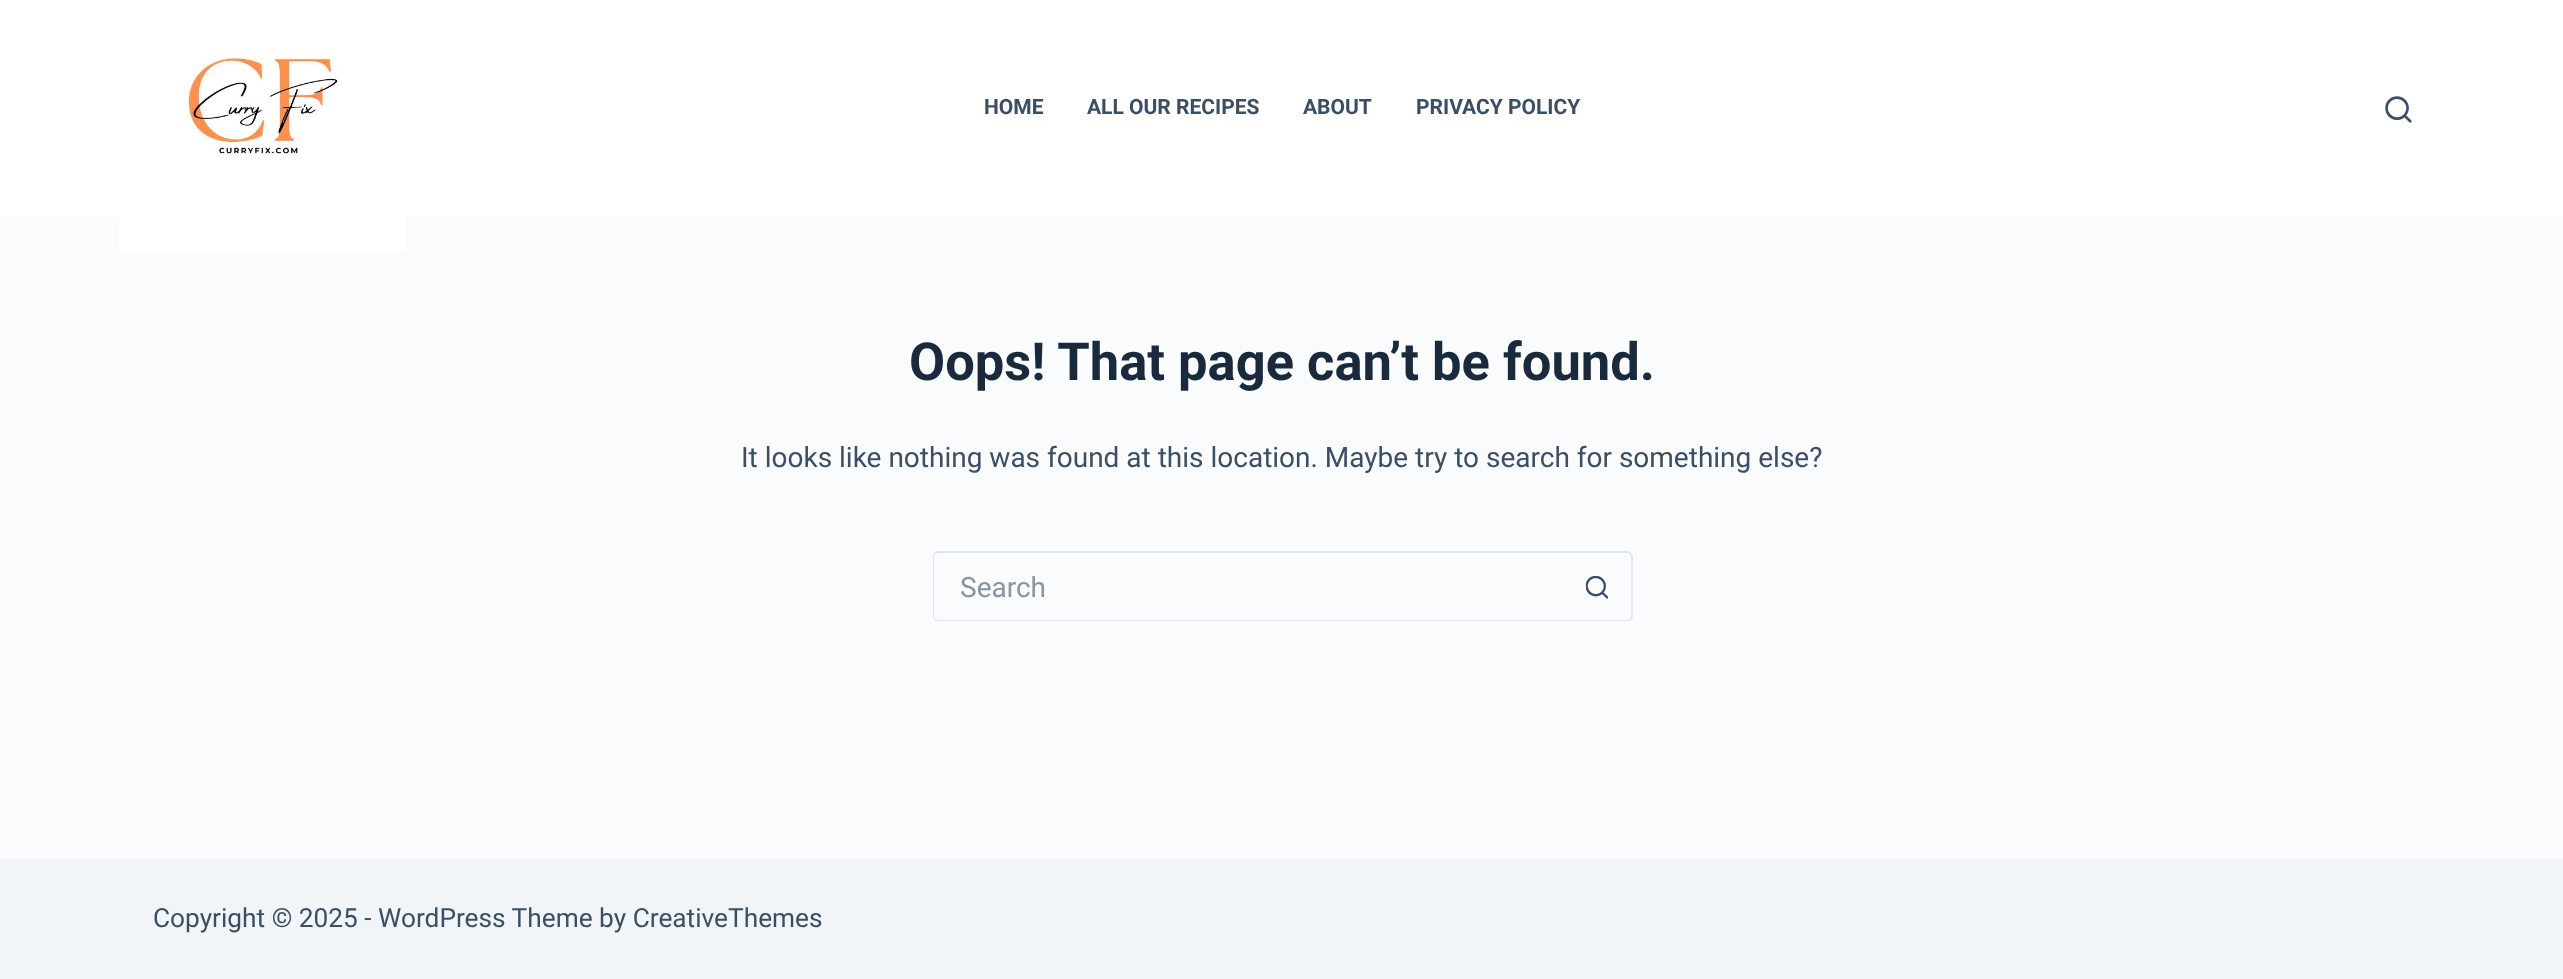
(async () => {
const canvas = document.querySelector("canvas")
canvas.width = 2563
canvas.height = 979
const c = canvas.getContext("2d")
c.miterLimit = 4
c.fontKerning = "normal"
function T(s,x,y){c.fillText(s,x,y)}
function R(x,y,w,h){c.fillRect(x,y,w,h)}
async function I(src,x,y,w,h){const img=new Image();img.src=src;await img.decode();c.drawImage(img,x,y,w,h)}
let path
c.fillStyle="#fafbfc"
R(0,0,2563,979)
c.fillStyle="#fff"
R(0,0,2563,217)
await I("1.png",119,57,287,195)
c.font="bold 21px Roboto"
c.fillStyle="#3a4f66"
T("HOME",984,114)
T("ALL OUR RECIPES",1087,114)
T("ABOUT",1303,114)
T("PRIVACY POLICY",1416,114)
await I("2.png",2385,96,27,27)
c.font="bold 52.5px Roboto"
c.fillStyle="#192a3d"
T("Oops! That page can’t be found.",909,380)
c.font="28px Roboto"
c.fillStyle="#3a4f66"
T("It looks like nothing was found at this location. Maybe try to search for something else?",741,467)
c.fillStyle="#e1e8ed"
path = new Path2D("M938 551h625v70h-625c-3 0-5-2-5-5v-60c0-2 2-5 5-5zm0 2h625v67h-625c-2 0-4-2-4-4v-60c0-1 2-3 4-3z")
c.fill(path,"evenodd")
c.fillStyle="#8794a2"
T("Search",960,597)
c.fillStyle="#e1e8ed"
path = new Path2D("M1563 551h65c2 0 5 3 5 5v60c0 3-3 5-5 5h-65zm0 2h65c1 0 3 2 3 3v60c0 2-2 4-3 4h-65z")
c.fill(path,"evenodd")
await I("3.png",1586,576,22,23)
c.fillStyle="#f2f5f7"
R(0,859,2563,120)
c.font="26.25px Roboto"
c.fillStyle="#3a4f66"
T("Copyright © 2025 - WordPress Theme by CreativeThemes",153,927)
})()
